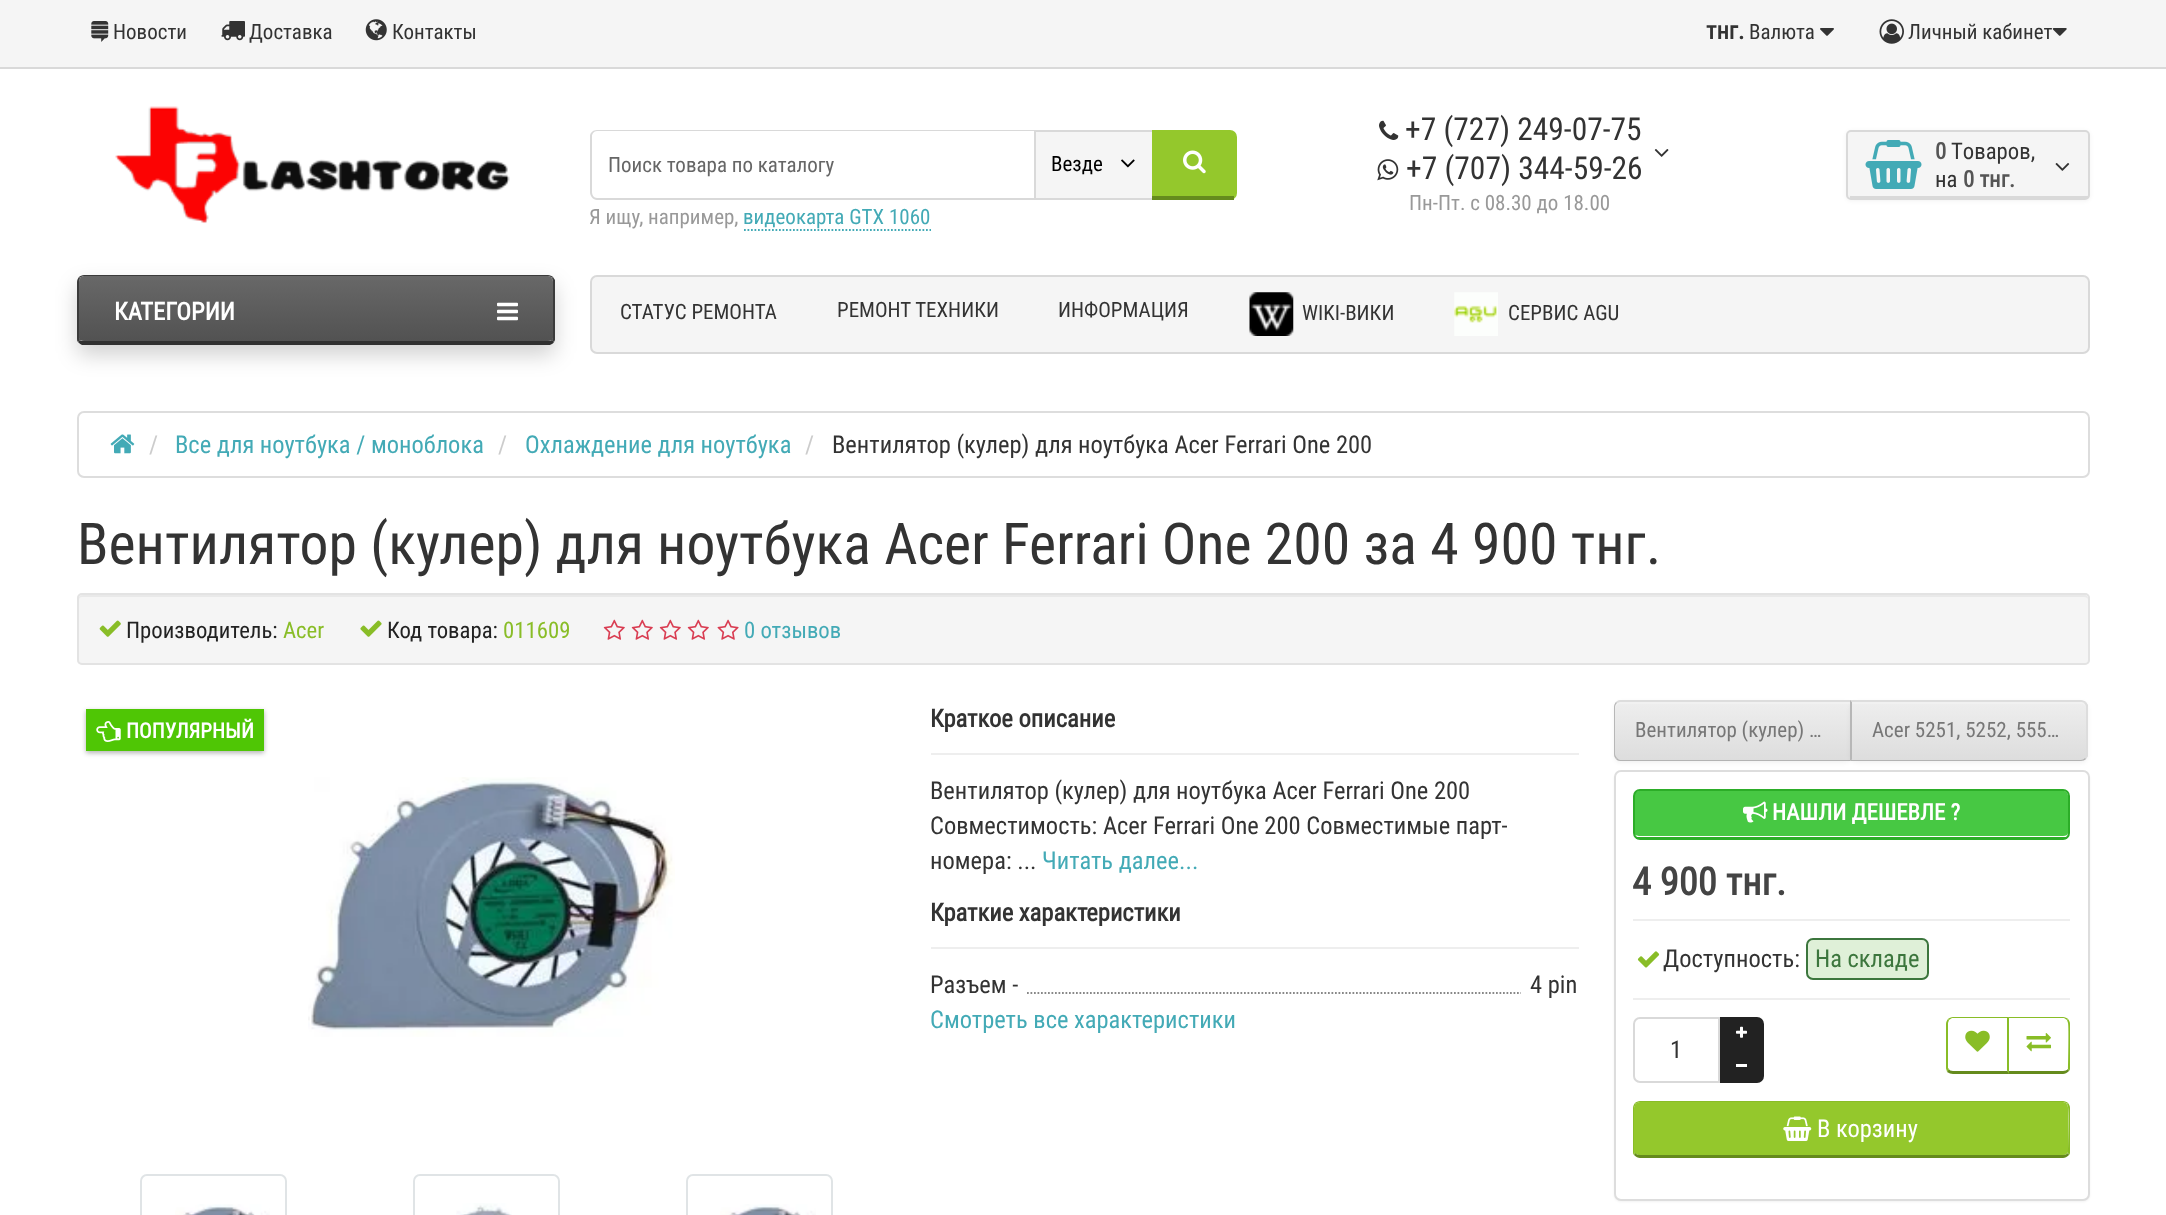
(async () => {
const canvas = document.querySelector("canvas")
canvas.width = 2166
canvas.height = 1215
const c = canvas.getContext("2d")
c.miterLimit = 4
c.fontKerning = "normal"
function T(s,x,y){c.fillText(s,x,y)}
function R(x,y,w,h){c.fillRect(x,y,w,h)}
function Q(x,y,w,h,r){c.beginPath();c.roundRect(x,y,w,h,r);c.fill()}
async function I(src,x,y,w,h){const img=new Image();img.src=src;await img.decode();c.drawImage(img,x,y,w,h)}
let gradient, path
c.fillStyle="#fff"
R(0,0,2166,1215)
c.fillStyle="#f5f5f5"
R(0,0,2166,67)
c.fillStyle="#d9d9d9"
R(0,67,2166,2)
await I("1.png",91,21,18,21)
c.font="21px Roboto Condensed"
c.fillStyle="#333"
T("Новости",113,39)
await I("2.png",221,21,24,20)
T("Доставка",249,39)
await I("3.png",365,19,22,22)
T("Контакты",392,39)
c.font="bold 24.5px Roboto Condensed"
T("тнг.",1706,39)
c.font="21px Roboto Condensed"
T("Валюта",1749,39)
await I("4.png",1820,28,14,8)
await I("5.png",1879,19,25,25)
T("Личный кабинет",1908,39)
await I("6.png",2052,28,15,8)
await I("7.png",115,106,395,118)
c.fillStyle="#d9d9d9"
path = new Path2D("M597 130h437v70h-437c-4 0-7-4-7-8v-56c0-3 3-6 7-6zm0 1h437v67h-437c-3 0-5-3-5-6v-56c0-2 2-5 5-5z")
c.fill(path,"evenodd")
c.fillStyle="#666"
T("Поиск товара по каталогу",608,172)
c.fillStyle="#f5f5f5"
R(1036,132,116,66)
c.fillStyle="#d9d9d9"
R(1034,130,119,2)
R(1034,198,119,2)
R(1034,130,2,70)
c.fillStyle="#000"
T("Везде",1051,171)
await I("8.png",1121,159,14,9)
c.fillStyle="#94c82c"
c.beginPath()
c.roundRect(1152,130,85,70,[0,7,7,0])
c.fill()
c.fillStyle="#658b1d"
R(1152,196,82,4)
await I("9.png",1183,150,23,24)
c.fillStyle="#999"
T("Я ищу, например,",589,224)
c.fillStyle="#43aab6"
T("видеокарта GTX 1060",743,224)
path = new Path2D("M744 230h187")
c.strokeStyle="#43aab6"
c.lineWidth=1.8
c.setLineDash([1.75,1.75])
c.stroke(path)
await I("10.png",1379,120,20,20)
c.font="31.5px Roboto Condensed"
c.fillStyle="#333"
T("+7 (727) 249-07-75",1405,140)
await I("11.png",1377,159,22,22)
T("+7 (707) 344-59-26",1406,179)
await I("12.png",1654,149,15,8)
c.font="21px Roboto Condensed"
c.fillStyle="#999"
T("Пн-Пт. с 08.30 до 18.00",1409,210)
c.fillStyle="#0000000d"
c.filter="blur(2px)"
c.beginPath()
c.roundRect(1846,131,244,70,5)
c.fill()
c.filter="none"
c.fillStyle="#f5f5f5"
path = new Path2D("M1852 131h232c2 0 4 2 4 4v59c0 1-2 2-4 2h-232c-2 0-4-1-4-2v-59c0-2 2-4 4-4z")
c.fill(path)
c.beginPath()
c.roundRect(1847,131,242,68,4)
c.strokeStyle="#d9d9d9"
c.lineWidth=2
c.setLineDash([])
c.stroke()
c.fillStyle="#d9d9d9"
R(1850,196,238,2)
await I("13.png",1865,140,57,49)
c.font="bold 22.75px Roboto Condensed"
c.fillStyle="#555"
T("0",1935,159)
c.font="22.75px Roboto Condensed"
c.fillStyle="#333"
T("Tоваров,",1951,159)
T("на",1935,187)
c.font="bold 22.75px Roboto Condensed"
c.fillStyle="#555"
T("0 тнг.",1963,187)
await I("14.png",2055,163,15,8)
c.fillStyle="#0000002e"
c.filter="blur(10.5px)"
c.beginPath()
c.roundRect(77,285,478,70,7)
c.fill()
c.filter="none"
gradient = c.createLinearGradient(316,276,316,341)
gradient.addColorStop(0,"#686868")
gradient.addColorStop(1,"#525252")
c.fillStyle = gradient
path = new Path2D("M84 276h464c3 0 5 3 5 6v56c0 2-2 3-5 3h-464c-3 0-5-1-5-3v-56c0-3 2-6 5-6z")
c.fill(path)
c.fillStyle="#3b3b3b"
path = new Path2D("M84 275c-2 0-4 1-5 2l1 1c1-1 2-2 4-2h464c2 0 3 1 4 2l1-1c-1-1-3-2-5-2z")
c.fill(path)
path = new Path2D("M553 277l2 3v60l-1 2l-2-2l1-2v-57l-1-3z")
c.fill(path)
c.fillStyle="#303030"
path = new Path2D("M82 345c-2-1-3-2-4-3l2-2c0 1 2 1 4 1h464c2 0 3 0 4-1l2 2c-1 2-3 2-4 3z")
c.fill(path)
c.fillStyle="#3b3b3b"
path = new Path2D("M77 282v56c0 2 0 3 1 4l2-2l-1-2v-57l1-3l-1-1c-1 1-2 3-2 5z")
c.fill(path)
c.font="bold 24.5px Roboto Condensed"
c.fillStyle="#fff"
T("КАТЕГОРИИ",114,320)
await I("15.png",497,302,21,19)
c.fillStyle="#f5f5f5"
c.beginPath()
c.roundRect(591,276,1498,77,6)
c.fill()
c.stroke()
c.font="21px Roboto Condensed"
c.fillStyle="#333"
T("СТАТУС РЕМОНТА",620,319)
T("РЕМОНТ ТЕХНИКИ",837,317)
T("ИНФОРМАЦИЯ",1058,317)
await I("16.png",1249,292,45,44)
T("WIKI-ВИКИ",1302,320)
await I("17.png",1454,292,44,44)
T("СЕРВИС AGU",1508,320)
c.beginPath()
c.roundRect(78,412,2011,65,6)
c.strokeStyle="#ddd"
c.stroke()
await I("18.png",110,434,25,20)
c.font="24.5px Roboto Condensed"
c.fillStyle="#ccc"
T("/",149,453)
c.fillStyle="#43aab6"
T("Все для ноутбука / моноблока",175,453)
c.fillStyle="#ccc"
T("/",498,453)
c.fillStyle="#43aab6"
T("Охлаждение для ноутбука",525,453)
c.fillStyle="#ccc"
T("/",805,453)
c.fillStyle="#333"
T("Вентилятор (кулер) для ноутбука Acer Ferrari One 200",832,453)
c.font="57.75px Roboto Condensed"
T("Вентилятор (кулер) для ноутбука Acer Ferrari One 200 за 4 900 тнг.",77,564)
c.fillStyle="#f5f5f5"
Q(77,593,2013,72,5)
c.fillStyle="#e9e9e9"
path = new Path2D("M82 597h2002c2 0 4 1 4 3c0-3-1-5-4-5h-2001c-2 0-4 1-4 3v2c0-2 1-3 3-3z")
c.fill(path)
c.beginPath()
c.roundRect(78,594,2011,70,4)
c.strokeStyle="#e3e3e3"
c.stroke()
await I("19.png",99,620,22,17)
c.font="22.75px Roboto Condensed"
c.fillStyle="#222"
T("Производитель:",126,638)
c.fillStyle="#89bd27"
T("Acer",283,638)
await I("20.png",360,620,22,17)
c.fillStyle="#222"
T("Код товара:",387,638)
c.fillStyle="#89bd27"
T("011609",503,638)
await I("21.png",603,619,22,21)
await I("21.png",631,619,22,21)
await I("21.png",659,619,22,21)
await I("21.png",687,619,22,21)
await I("22.png",717,619,22,21)
c.fillStyle="#43aab6"
T("0 отзывов",744,638)
c.fillStyle="#0000004d"
c.filter="blur(2.5px)"
c.beginPath()
c.rect(86,711,178,42)
c.fill()
c.filter="none"
c.fillStyle="#4fc605"
R(86,709,178,42)
await I("23.png",96,721,25,21)
c.font="bold 21px Roboto Condensed"
c.fillStyle="#fff"
T("ПОПУЛЯРНЫЙ",126,738)
await I("24.png",308,777,367,260)
c.beginPath()
c.roundRect(141,1175,145,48,6)
c.strokeStyle="#e0e4e6"
c.stroke()
await I("25.png",175,1204,95,11)
c.beginPath()
c.roundRect(414,1175,145,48,6)
c.stroke()
await I("26.png",456,1203,56,12)
c.beginPath()
c.roundRect(687,1175,145,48,6)
c.stroke()
await I("27.png",720,1204,96,11)
c.font="bold 24.5px Roboto Condensed"
c.fillStyle="#333"
T("Краткое описание",930,727)
c.fillStyle="#eee"
R(931,753,648,2)
c.font="24.5px Roboto Condensed"
c.fillStyle="#333"
T("Вентилятор (кулер) для ноутбука Acer Ferrari One 200",930,799)
T("Совместимость: Acer Ferrari One 200 Совместимые парт-",930,834)
T("номера: ...",930,869)
c.fillStyle="#43aab6"
T("Читать далее...",1042,869)
c.font="bold 24.5px Roboto Condensed"
c.fillStyle="#333"
T("Краткие характеристики",930,921)
c.fillStyle="#eee"
R(931,947,648,2)
c.font="24.5px Roboto Condensed"
c.fillStyle="#333"
T("Разъем -",930,993)
path = new Path2D("M1027 993h551.5")
c.strokeStyle="#888"
c.lineWidth=1.8
c.setLineDash([1.75,1.75])
c.stroke(path)
c.fillStyle="#fff"
R(1521,992,58,2)
c.fillStyle="#333"
T("4 pin",1530,993)
c.fillStyle="#43aab6"
T("Смотреть все характеристики",930,1028)
c.fillStyle="#0000000d"
c.filter="blur(2px)"
c.beginPath()
c.roundRect(1614,702,238,61,7)
c.fill()
c.filter="none"
c.save()
c.beginPath()
c.roundRect(1614,700,238,61,[7,0,0,7])
c.clip()
gradient = c.createLinearGradient(1733,702,1733,760)
gradient.addColorStop(0,"#eee")
gradient.addColorStop(1,"#ddd")
c.fillStyle = gradient
R(1614,702,236,58)
c.restore()
c.fillStyle="#f1f1f1"
path = new Path2D("M1620 704h230v-2h-230c-4 0-5 4-5 7c0-3 3-5 5-5z")
c.fill(path)
c.fillStyle="#ddd"
path = new Path2D("M1620 700c-2 0-3 1-4 2l1 1l3-1h230l2-2z")
c.fill(path)
c.fillStyle="#b3b3b3"
path = new Path2D("M1851 761h-231c-2 0-3-1-4-2l1-1c1 1 2 2 3 2h230z")
c.fill(path)
c.fillStyle="#b7b7b7"
path = new Path2D("M1616 702c-1 1-2 3-2 5v47c0 2 1 4 2 5l1-1c-1-1-2-3-2-4v-47c0-2 1-3 2-4z")
c.fill(path)
c.font="21px Roboto Condensed"
c.fillStyle="#777"
T("Вентилятор (кулер) …",1635,737)
c.fillStyle="#0000000d"
c.filter="blur(2px)"
c.beginPath()
c.roundRect(1850,702,238,61,7)
c.fill()
c.filter="none"
c.save()
c.beginPath()
c.roundRect(1850,700,238,61,[0,7,7,0])
c.clip()
gradient = c.createLinearGradient(1969,702,1969,760)
gradient.addColorStop(0,"#eee")
gradient.addColorStop(1,"#ddd")
c.fillStyle = gradient
R(1851,702,237,58)
c.restore()
c.fillStyle="#f1f1f1"
path = new Path2D("M1852 704h229c3 0 5 2 5 5c0-3-1-7-5-7h-229z")
c.fill(path)
c.fillStyle="#ddd"
path = new Path2D("M1850 700l2 2h229c1 0 3 0 3 1l2-1c-1-1-3-2-5-2z")
c.fill(path)
path = new Path2D("M2088 756l-2 3l-1-1c1-1 1-2 1-4v-47c0-2-1-3-2-4l2-1l2 3z")
c.fill(path)
c.fillStyle="#b3b3b3"
path = new Path2D("M2086 759c-1 1-3 2-5 2h-231l2-2v1h229c1 0 3-1 4-2z")
c.fill(path)
c.fillStyle="#b7b7b7"
path = new Path2D("M1850 700v61l2-2v-57z")
c.fill(path)
c.fillStyle="#777"
T("Acer 5251, 5252, 555…",1872,737)
c.fillStyle="#0000000d"
c.filter="blur(1px)"
c.beginPath()
c.roundRect(1614,772,476,430,7)
c.fill()
c.filter="none"
c.fillStyle="#fff"
c.beginPath()
c.roundRect(1615,771,474,429,6)
c.fill()
c.strokeStyle="#ddd"
c.lineWidth=2
c.setLineDash([])
c.stroke()
c.fillStyle="#47c843"
path = new Path2D("M1640 791h423c3 0 5 2 5 5v37c0 2-2 3-5 3h-423c-3 0-6-1-6-3v-37c0-3 3-5 6-5z")
c.fill(path)
c.beginPath()
c.roundRect(1634,790,435,49,6)
c.strokeStyle="#2cad28"
c.stroke()
c.fillStyle="#2cad28"
R(1636,837,431,2)
await I("28.png",1743,801,25,22)
c.font="bold 22.75px Roboto Condensed"
c.fillStyle="#fff"
T("НАШЛИ ДЕШЕВЛЕ ?",1772,820)
c.font="bold 38.5px Roboto Condensed"
c.fillStyle="#444"
T("4 900 тнг.",1632,895)
c.fillStyle="#eee"
R(1633,919,437,2)
await I("29.png",1637,951,23,17)
c.font="24.5px Roboto Condensed"
c.fillStyle="#333"
T("Доступность:",1663,967)
c.fillStyle="#dff0d8"
c.beginPath()
c.roundRect(1807,939,121,40,6)
c.fill()
c.strokeStyle="#3c763d"
c.stroke()
c.fillStyle="#3c763d"
T("На складе",1815,967)
c.fillStyle="#eee"
R(1633,998,437,2)
c.beginPath()
c.roundRect(1634,1018,85,64,[6,0,0,6])
c.strokeStyle="#d9d9d9"
c.stroke()
c.fillStyle="#333"
T("1",1670,1058)
c.fillStyle="#222"
c.beginPath()
c.roundRect(1720,1017,44,33,[0,7,0,0])
c.fill()
await I("30.png",1736,1026,11,12)
c.beginPath()
c.roundRect(1720,1050,44,33,[0,0,7,0])
c.fill()
c.fillStyle="#fff"
R(1736,1064,11,3)
c.fillStyle="#89bd27"
path = new Path2D("M1953 1017c-2 0-4 1-5 2l1 1l3-2h55v1l2-2z")
c.fill(path)
path = new Path2D("M2009 1074v-57l-2 2v51z")
c.fill(path)
c.fillStyle="#658b1d"
path = new Path2D("M2009 1074h-56c-2 0-4-1-6-2l2-3c0 1 2 2 4 2h54v-1z")
c.fill(path)
c.fillStyle="#89bd27"
path = new Path2D("M1946 1024v44c0 1 1 3 1 4l2-3l-1-1v-45l1-3l-1-1c-1 1-2 3-2 5z")
c.fill(path)
await I("31.png",1965,1030,25,22)
path = new Path2D("M2009 1018h55l3 2l1-1c-1-1-3-2-5-2h-55z")
c.fill(path)
path = new Path2D("M2069 1071c1-1 1-2 1-3v-44c0-2-1-4-2-5l-1 1l1 3c1 4 0 45 0 46z")
c.fill(path)
c.fillStyle="#658b1d"
path = new Path2D("M2069 1071c-2 2-4 3-6 3h-55l1-3h54c2 0 4-1 5-2z")
c.fill(path)
c.fillStyle="#89bd27"
path = new Path2D("M2007 1017l2 1v53l-1 3z")
c.fill(path)
await I("32.png",2026,1033,25,19)
c.fillStyle="#94c82c"
path = new Path2D("M1640 1102h423c3 0 5 3 5 6v44c0 1-2 3-5 3h-423c-3 0-6-2-6-3v-44c0-3 3-6 6-6z")
c.fill(path)
c.fillStyle="#89bd27"
path = new Path2D("M1640 1101c-2 0-4 1-5 2l1 1c1-1 2-2 4-2h423c2 0 3 1 4 2l1-1c-1-1-3-2-5-2z")
c.fill(path)
path = new Path2D("M2069 1155c1-1 1-2 1-3v-44c0-2-1-4-2-5l-1 1l1 3c1 4 0 45 0 46z")
c.fill(path)
c.fillStyle="#658b1d"
path = new Path2D("M2069 1155c-2 2-4 3-6 3h-423c-2 0-4-1-6-3l1-2c1 1 3 2 5 2h423c2 0 4-1 5-2z")
c.fill(path)
c.fillStyle="#89bd27"
path = new Path2D("M1635 1103c-1 1-2 3-2 5v44c0 1 0 2 1 3l1-2l-1-1v-45l2-3z")
c.fill(path)
await I("33.png",1783,1116,29,25)
c.fillStyle="#fff"
T("В корзину",1817,1137)
})()
